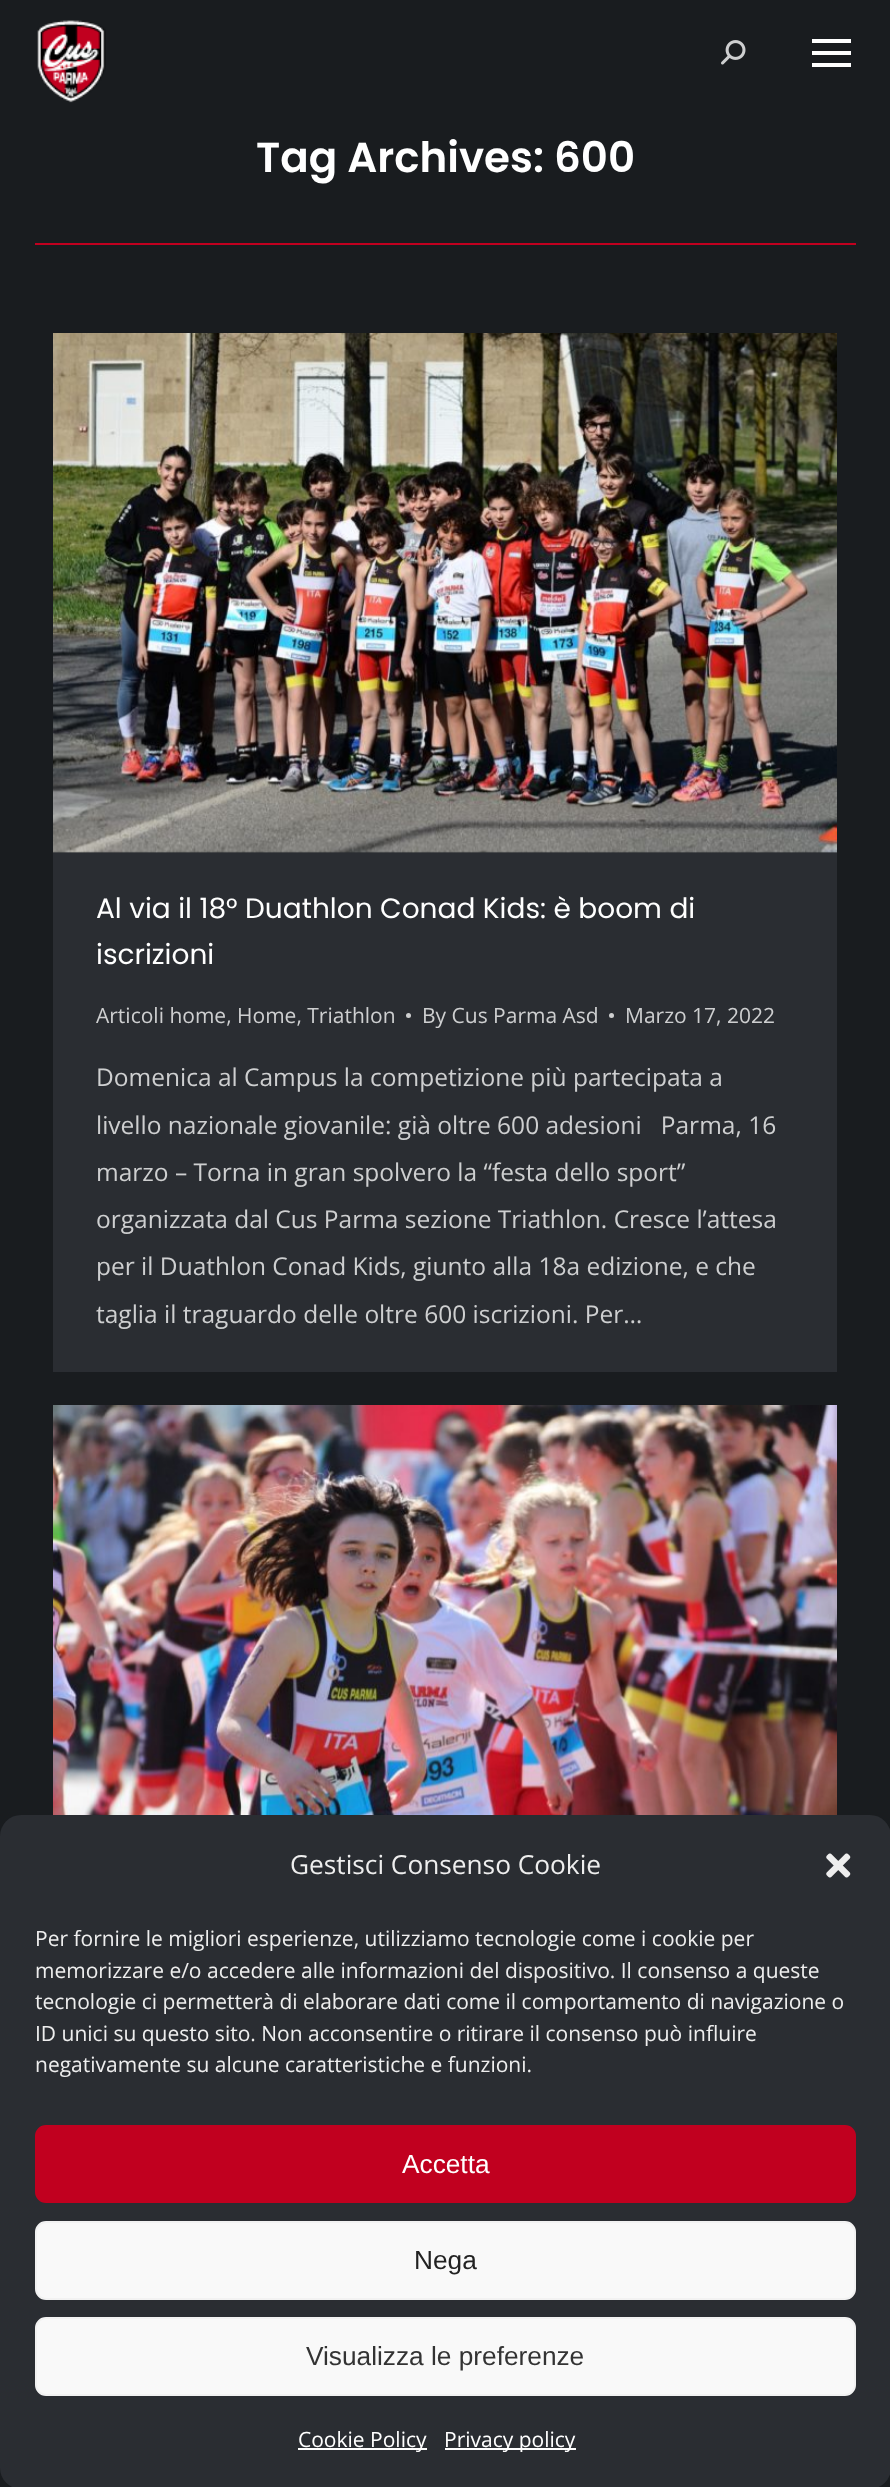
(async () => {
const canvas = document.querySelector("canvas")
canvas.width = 890
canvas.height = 2487
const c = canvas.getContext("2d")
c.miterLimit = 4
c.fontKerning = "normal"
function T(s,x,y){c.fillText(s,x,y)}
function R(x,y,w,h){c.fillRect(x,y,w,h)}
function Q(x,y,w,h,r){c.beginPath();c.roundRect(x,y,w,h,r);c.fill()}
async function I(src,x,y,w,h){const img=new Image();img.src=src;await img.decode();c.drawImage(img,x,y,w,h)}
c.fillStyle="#191c1f"
R(0,0,890,2487)
await I("1.png",37,20,69,83)
await I("2.png",721,40,25,25)
c.fillStyle="#fff"
R(812,39,39,4)
R(812,51,39,4)
R(812,63,39,4)
c.font="600 42px Poppins"
T("Tag Archives: 600",256,172)
c.fillStyle="#c1001f"
R(35,243,821,2)
c.fillStyle="#2a2d32"
R(53,851,784,521)
await I("3.png",53,333,784,520)
c.font="28px Poppins"
c.fillStyle="#fff"
T("Al via il 18° Duathlon Conad Kids: è boom di",96,918)
T("iscrizioni",96,964)
c.font="21px Open Sans"
c.fillStyle="#cecfd0"
T("Articoli home, Home, Triathlon",96,1023)
c.beginPath()
c.arc(408.5,1015.5,2.5,0,7)
c.fill()
T("By Cus Parma Asd",422,1023)
c.beginPath()
c.arc(611.5,1015.5,2.5,0,7)
c.fill()
T("Marzo 17, 2022",625,1023)
c.font="24.5px Open Sans"
T("Domenica al Campus la competizione più partecipata a",96,1086)
T("livello nazionale giovanile: già oltre 600 adesioni   Parma, 16",96,1134)
T("marzo – Torna in gran spolvero la “festa dello sport”",96,1181)
T("organizzata dal Cus Parma sezione Triathlon. Cresce l’attesa",96,1228)
T("per il Duathlon Conad Kids, giunto alla 18a edizione, e che",96,1275)
T("taglia il traguardo delle oltre 600 iscrizioni. Per…",96,1323)
await I("4.png",53,1405,784,410)
c.fillStyle="#2a2d32"
Q(0,1815,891,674,21)
c.font="26.25px Open Sans"
c.fillStyle="#eee"
T("Gestisci Consenso Cookie",290,1874)
await I("5.png",826,1853,25,25)
c.font="21px Open Sans"
T("Per fornire le migliori esperienze, utilizziamo tecnologie come i cookie per",35,1946)
T("memorizzare e/o accedere alle informazioni del dispositivo. Il consenso a queste",35,1978)
T("tecnologie ci permetterà di elaborare dati come il comportamento di navigazione o",35,2009)
T("ID unici su questo sito. Non acconsentire o ritirare il consenso può influire",35,2041)
T("negativamente su alcune caratteristiche e funzioni.",35,2072)
c.fillStyle="#c1001f"
c.beginPath()
c.roundRect(36,2126,819,76,10)
c.fill()
c.strokeStyle="#c1001f"
c.lineWidth=2
c.stroke()
c.font="26.25px Liberation Sans"
c.fillStyle="#fff"
T("Accetta",402,2173)
c.fillStyle="#f9f9f9"
c.beginPath()
c.roundRect(36,2222,819,77,10)
c.fill()
c.strokeStyle="#f2f2f2"
c.stroke()
c.fillStyle="#222"
T("Nega",414,2269)
c.fillStyle="#f9f9f9"
c.beginPath()
c.roundRect(36,2318,819,77,10)
c.fill()
c.stroke()
c.fillStyle="#333"
T("Visualizza le preferenze",306,2365)
c.fillStyle="#fff"
R(298,2448,129,2)
c.font="21px Open Sans"
T("Cookie Policy",298,2447)
R(445,2448,131,2)
T("Privacy policy",444,2447)
})()
